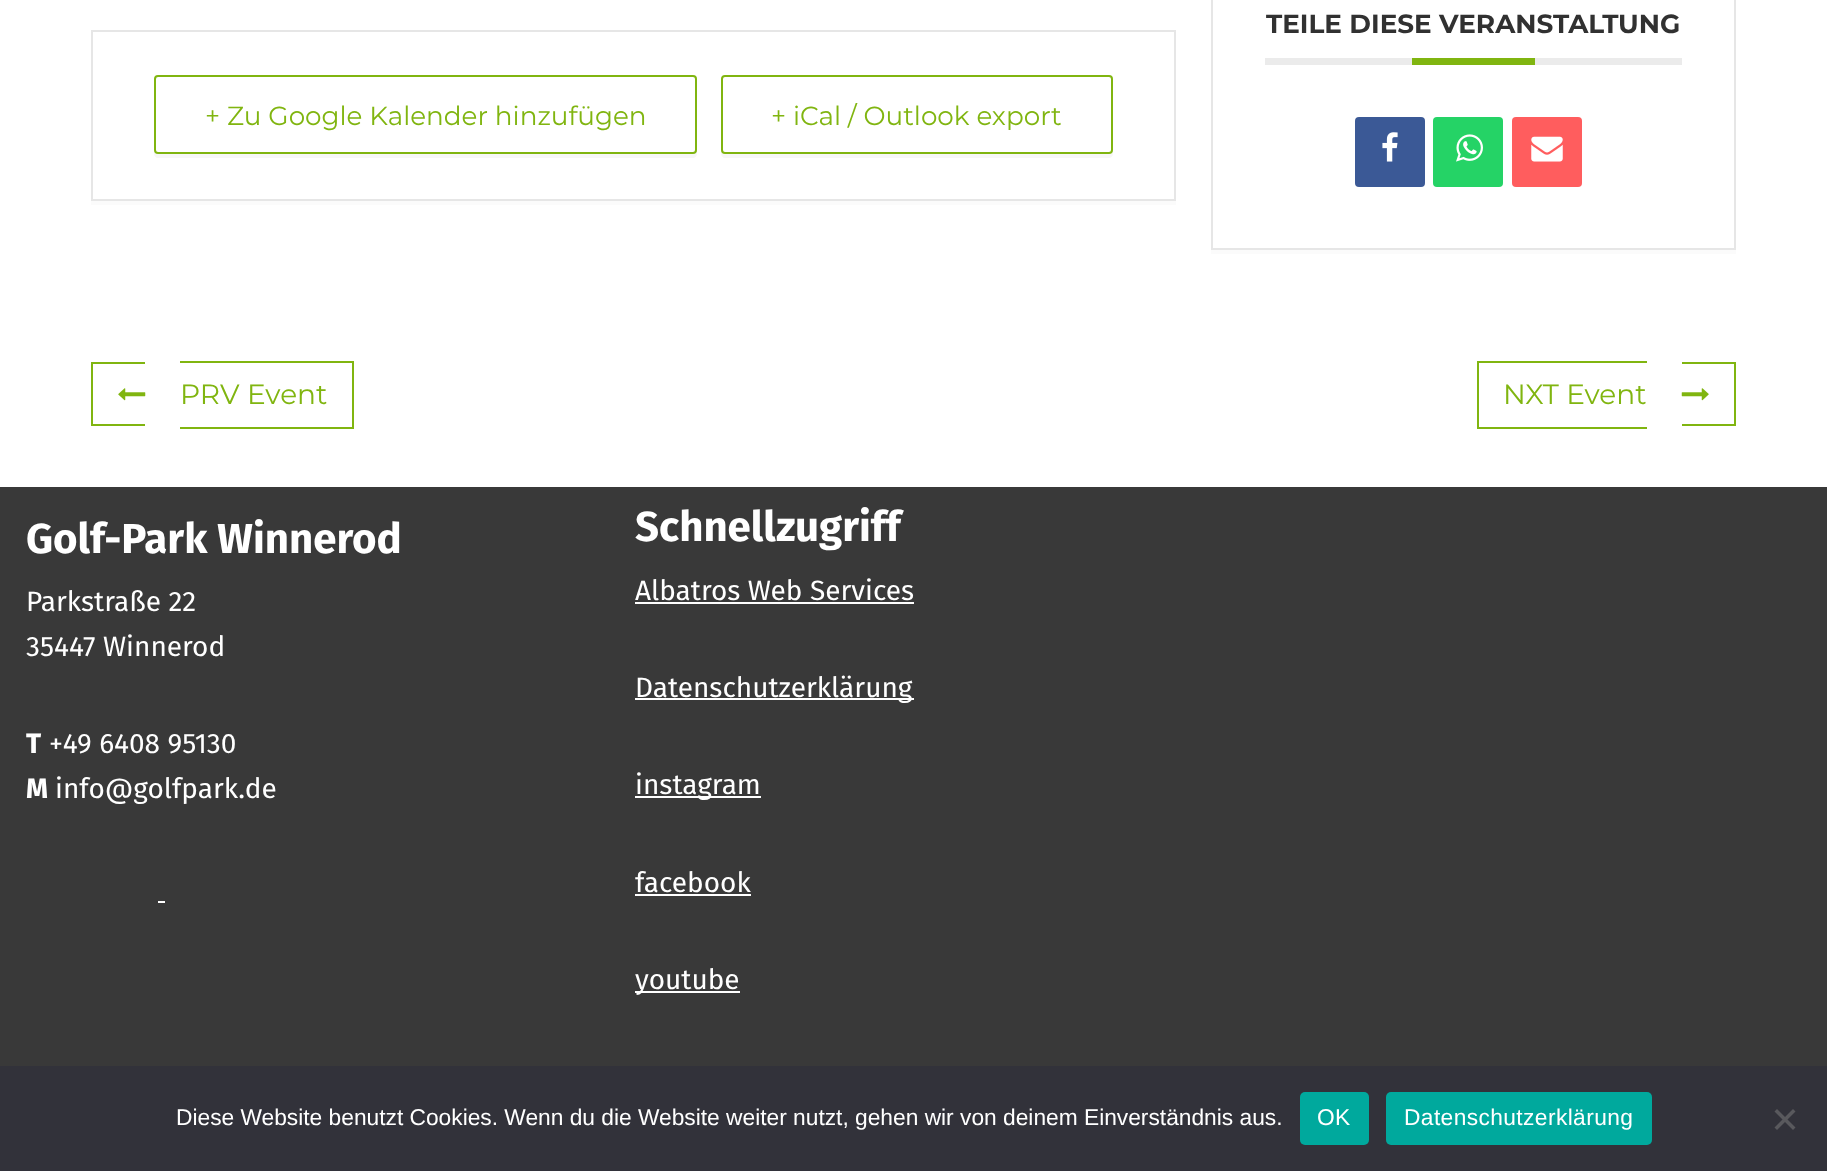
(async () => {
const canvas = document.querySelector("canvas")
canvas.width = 1827
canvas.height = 1171
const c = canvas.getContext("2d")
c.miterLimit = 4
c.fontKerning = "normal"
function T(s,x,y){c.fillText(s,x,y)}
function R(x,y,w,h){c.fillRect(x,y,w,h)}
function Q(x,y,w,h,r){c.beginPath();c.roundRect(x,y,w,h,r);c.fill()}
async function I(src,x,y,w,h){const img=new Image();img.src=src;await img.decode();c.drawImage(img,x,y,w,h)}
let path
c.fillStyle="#fff"
R(0,0,1827,1171)
c.fillStyle="#fbfbfb"
R(1211,250,525,4)
c.strokeStyle="#e6e6e6"
c.lineWidth=2
c.strokeRect(1212,-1,523,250)
c.fillStyle="#ebebeb"
R(1265,58,417,7)
c.font="bold 26.25px Montserrat"
c.fillStyle="#313131"
T("TEILE DIESE VERANSTALTUNG",1266,33)
c.fillStyle="#80b510"
R(1412,58,123,7)
c.fillStyle="#3b5996"
Q(1355,117,70,70,4)
await I("1.png",1382,132,16,30)
c.fillStyle="#25d366"
Q(1433,117,70,70,4)
await I("2.png",1456,134,27,28)
c.fillStyle="#ff5d5e"
Q(1512,117,70,70,4)
await I("3.png",1531,136,32,26)
c.fillStyle="#fbfbfb"
R(91,201,1085,4)
c.strokeRect(92,31,1083,169)
c.fillStyle="#f7f7f7"
path = new Path2D("M154 150v4c0 2 2 4 4 4h535c2 0 4-2 4-4v-71l-1-2v69c0 2-1 4-3 4h-535c-2 0-4-2-4-4z")
c.fill(path)
c.fillStyle="#fff"
c.beginPath()
c.roundRect(155,76,541,77,3)
c.fill()
c.strokeStyle="#80b510"
c.stroke()
c.font="26.25px Montserrat"
c.fillStyle="#80b510"
T("+ Zu Google Kalender hinzufügen",205,125)
c.fillStyle="#f7f7f7"
path = new Path2D("M721 150v4c0 2 2 4 4 4h384c2 0 4-2 4-4v-4c0 2-2 4-3 4h-386c-1 0-3-2-3-4z")
c.fill(path)
c.beginPath()
c.roundRect(722,76,390,77,3)
c.stroke()
c.fillStyle="#80b510"
T("+ iCal / Outlook export",771,125)
await I("4.png",118,388,28,13)
c.font="28px Montserrat"
T("PRV Event",180,404)
R(91,362,54,2)
R(91,424,54,2)
R(91,362,2,63)
R(180,361,174,2)
R(352,361,2,68)
R(180,427,174,2)
T("NXT Event",1503,404)
R(1477,361,170,2)
R(1477,427,170,2)
R(1477,361,2,68)
R(1682,362,54,2)
R(1734,362,2,63)
R(1682,424,54,2)
await I("5.png",1681,388,28,13)
c.fillStyle="#393939"
R(0,487,1827,579)
c.font="bold 42px Fira Sans"
c.fillStyle="#fff"
T("Golf-Park Winnerod",26,553)
c.font="28px Fira Sans"
T("Parkstraße 22",26,611)
T("35447 Winnerod",26,656)
c.font="bold 28px Fira Sans"
T("T",26,753)
c.font="28px Fira Sans"
T("+49 6408 95130",49,753)
c.font="bold 28px Fira Sans"
T("M",26,798)
c.font="28px Fira Sans"
T("info@golfpark.de",55,798)
R(158,901,7,2)
c.font="bold 42px Fira Sans"
T("Schnellzugriff",635,541)
c.font="28px Fira Sans"
T("Albatros Web Services",635,600)
R(635,602,279,2)
R(635,698,279,2)
T("Datenschutzerklärung",635,697)
R(635,796,126,2)
T("instagram",635,794)
T("facebook",635,892)
R(635,894,116,2)
R(635,991,105,2)
T("youtube",635,989)
c.fillStyle="#32323a"
R(0,1066,1827,105)
c.font="22.75px Liberation Sans"
c.fillStyle="#fff"
T("Diese Website benutzt Cookies. Wenn du die Website weiter nutzt, gehen wir von deinem Einverständnis aus.",176,1125)
c.fillStyle="#00a99d"
Q(1300,1092,69,53,5)
c.letterSpacing="0.4px"
c.fillStyle="#fff"
T("OK",1317,1125)
c.fillStyle="#00a99d"
Q(1386,1092,266,53,5)
c.fillStyle="#fff"
T("Datenschutzerklärung",1404,1125)
c.fillStyle="#59595d"
path = new Path2D("M1793 1109l2.5 2.5l-18.5 18.5l-2.5-2.5z")
c.fill(path)
path = new Path2D("M1774.5 1111.5l2.5-2.5l18.5 18.5l-2.5 2.5z")
c.fill(path)
})()
